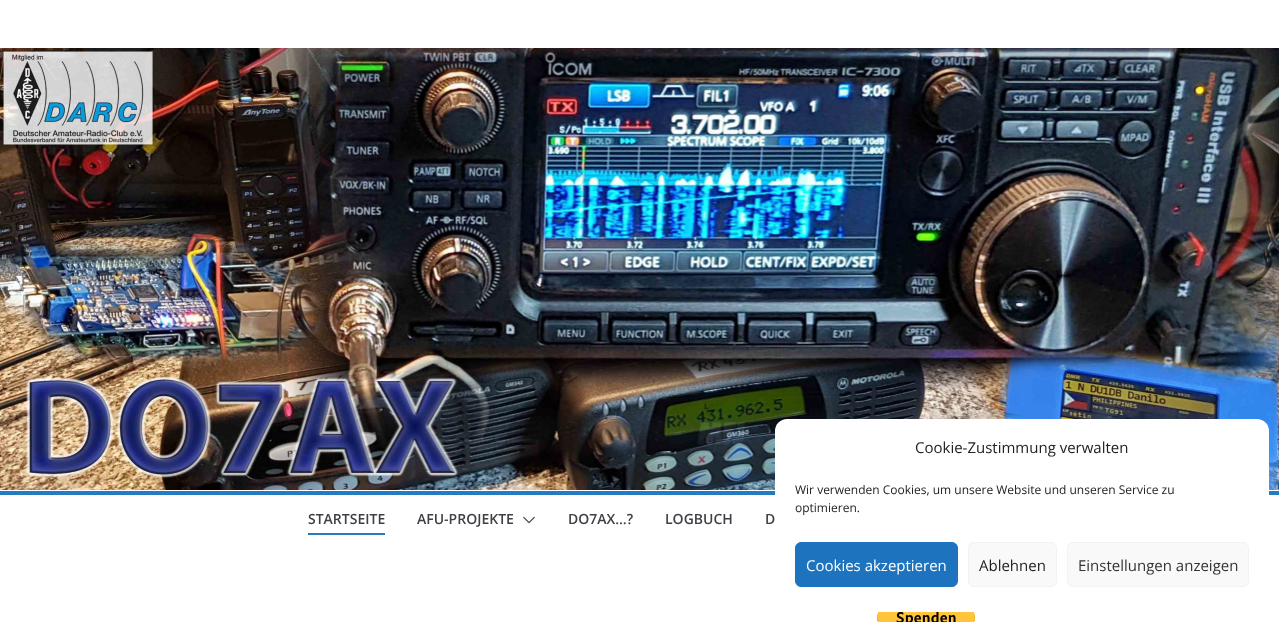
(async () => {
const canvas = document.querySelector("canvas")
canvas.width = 1279
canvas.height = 622
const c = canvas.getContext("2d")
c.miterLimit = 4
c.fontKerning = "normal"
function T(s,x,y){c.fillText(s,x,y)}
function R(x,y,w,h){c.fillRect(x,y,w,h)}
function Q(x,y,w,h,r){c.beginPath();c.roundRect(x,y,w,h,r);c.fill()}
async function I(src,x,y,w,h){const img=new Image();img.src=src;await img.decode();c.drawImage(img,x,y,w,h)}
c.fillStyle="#fff"
R(0,0,1279,622)
await I("1.png",0,48,1279,442)
c.fillStyle="#257bc1"
R(0,491,1279,4)
R(308,533,77,2)
c.font="600 14px Open Sans"
c.fillStyle="#3f3f46"
T("STARTSEITE",308,524)
T("AFU-PROJEKTE",417,524)
await I("2.png",523,516,12,8)
T("DO7AX…?",568,524)
T("LOGBUCH",665,524)
T("D",765,524)
await I("3.png",877,612,98,10)
c.fillStyle="#fff"
Q(775,419,494,193,12)
c.font="15px Open Sans"
c.fillStyle="#222"
T("Cookie-Zustimmung verwalten",915,453)
c.font="12px Open Sans"
T("Wir verwenden Cookies, um unsere Website und unseren Service zu",795,494)
T("optimieren.",795,512)
c.fillStyle="#1e73be"
c.beginPath()
c.roundRect(795.5,542.5,162,44,5.5)
c.fill()
c.strokeStyle="#1e73be"
c.stroke()
c.font="15px Open Sans"
c.fillStyle="#fff"
T("Cookies akzeptieren",806,571)
c.fillStyle="#f9f9f9"
c.beginPath()
c.roundRect(968.5,542.5,88,44,5.5)
c.fill()
c.strokeStyle="#f2f2f2"
c.stroke()
c.fillStyle="#222"
T("Ablehnen",979,571)
c.fillStyle="#f9f9f9"
c.beginPath()
c.roundRect(1067.5,542.5,181,44,5.5)
c.fill()
c.stroke()
c.fillStyle="#333"
T("Einstellungen anzeigen",1078,571)
})()
